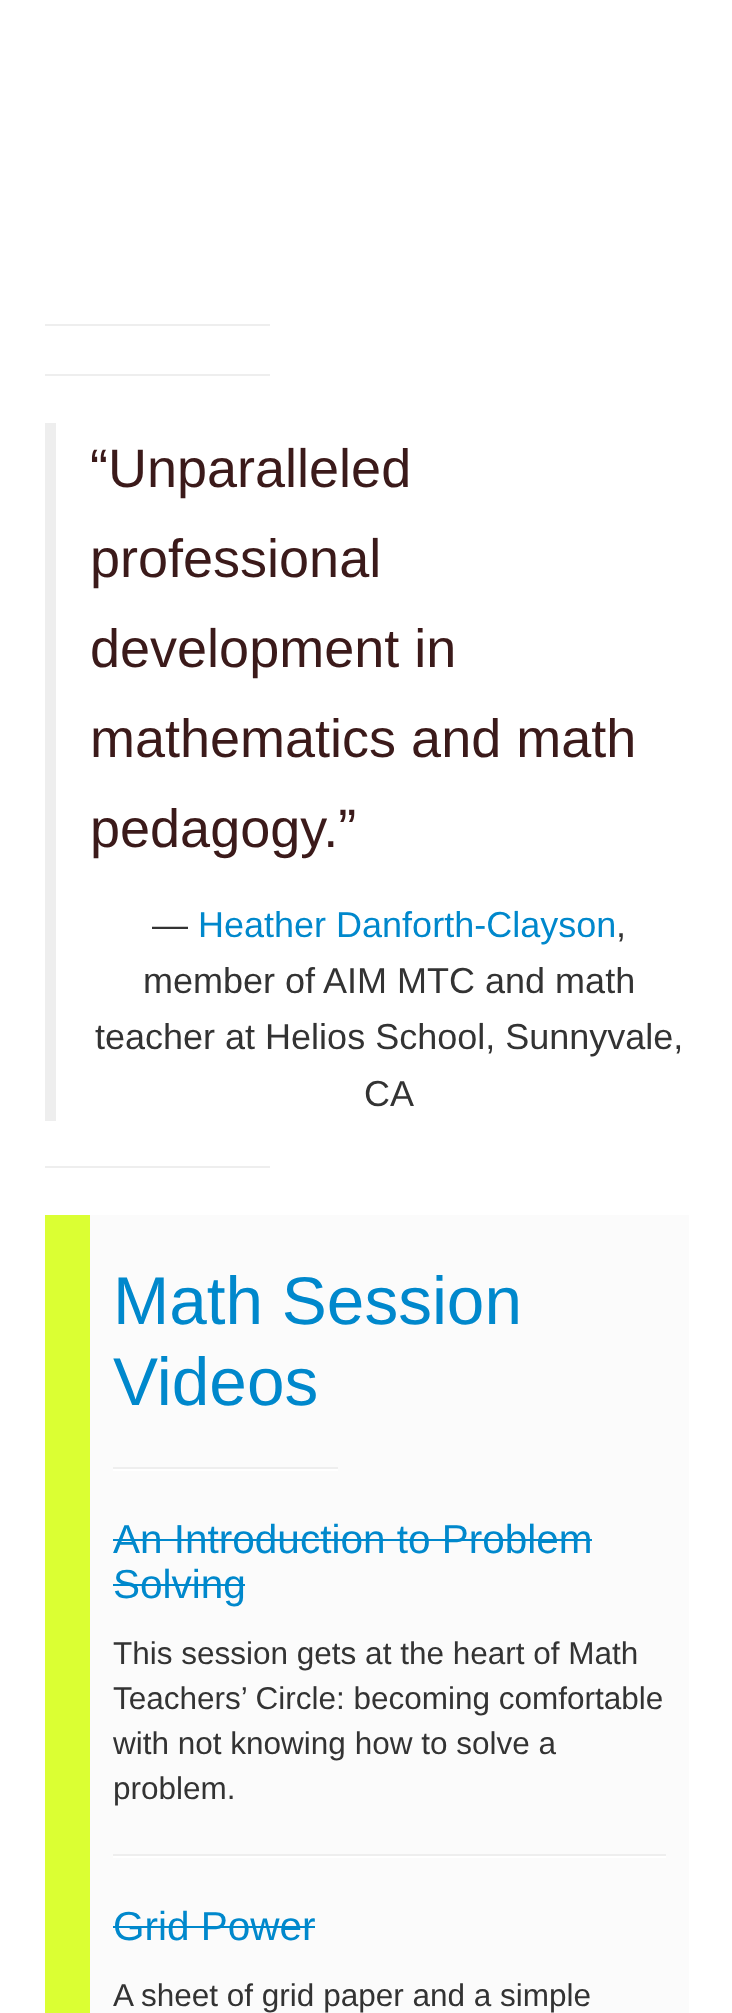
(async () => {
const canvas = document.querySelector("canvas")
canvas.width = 732
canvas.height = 2013
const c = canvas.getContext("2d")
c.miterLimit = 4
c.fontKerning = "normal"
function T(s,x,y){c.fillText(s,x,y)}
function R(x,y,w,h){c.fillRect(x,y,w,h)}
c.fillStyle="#fff"
R(0,0,732,2013)
c.fillStyle="#eee"
R(45,324,225,2)
R(45,374,225,2)
R(45,423,11,698)
c.font="54px Liberation Sans"
c.fillStyle="#3b1a1a"
T("“Unparalleled",90,487)
T("professional",90,577)
T("development in",90,667)
T("mathematics and math",90,757)
T("pedagogy.”",90,847)
c.font="36px Liberation Sans"
c.fillStyle="#333"
T("—",152,937)
c.fillStyle="#08c"
T("Heather Danforth-Clayson",198,937)
c.fillStyle="#333"
T(",",616,937)
T("member of AIM MTC and math",143,993)
T("teacher at Helios School, Sunnyvale,",95,1049)
T("CA",364,1106)
c.fillStyle="#eee"
R(45,1166,225,2)
c.fillStyle="#fbfbfb"
R(90,1215,599,798)
c.fillStyle="#dbff33"
R(45,1215,45,798)
c.font="67.5px Liberation Sans"
c.fillStyle="#08c"
T("Math Session",113,1324)
T("Videos",113,1405)
c.fillStyle="#eee"
R(113,1467,225,2)
c.fillStyle="#fff"
R(113,1469,225,2)
c.font="40.5px Liberation Sans"
c.fillStyle="#08c"
T("An Introduction to Problem",113,1553)
R(113,1539,479,2)
T("Solving",113,1598)
R(113,1584,132,2)
c.font="31.5px Liberation Sans"
c.fillStyle="#333"
T("This session gets at the heart of Math",113,1664)
T("Teachers’ Circle: becoming comfortable",113,1709)
T("with not knowing how to solve a",113,1754)
T("problem.",113,1799)
c.fillStyle="#eee"
R(113,1854,553,2)
c.fillStyle="#fff"
R(113,1856,553,2)
c.font="40.5px Liberation Sans"
c.fillStyle="#08c"
T("Grid Power",113,1940)
R(113,1926,202,2)
c.font="31.5px Liberation Sans"
c.fillStyle="#333"
T("A sheet of grid paper and a simple",113,2006)
})()
